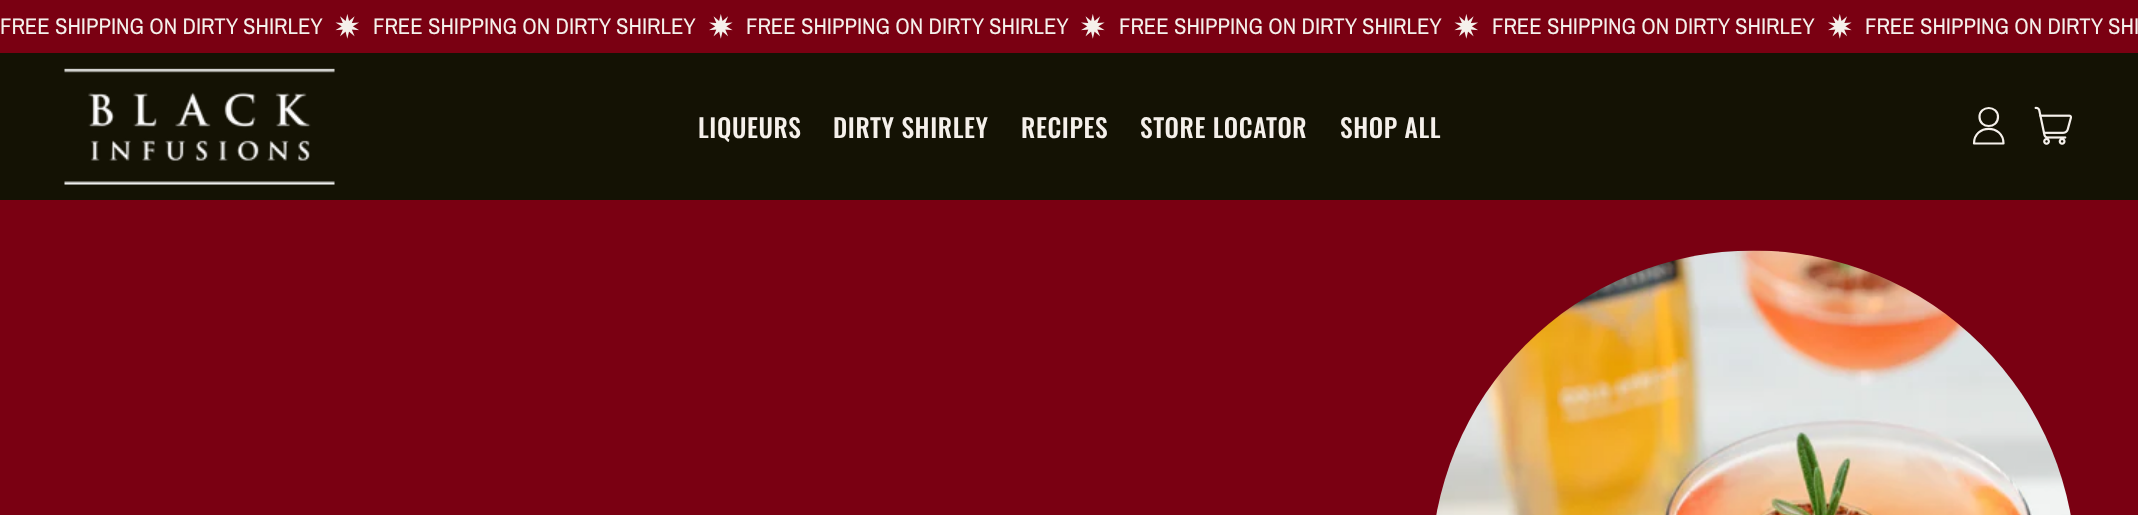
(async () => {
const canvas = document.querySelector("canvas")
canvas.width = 2138
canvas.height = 515
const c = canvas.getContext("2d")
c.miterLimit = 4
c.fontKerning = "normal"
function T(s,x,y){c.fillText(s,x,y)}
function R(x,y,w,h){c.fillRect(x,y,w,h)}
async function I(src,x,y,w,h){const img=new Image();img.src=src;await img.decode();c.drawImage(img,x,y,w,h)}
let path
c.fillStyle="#7a0012"
R(0,0,2138,515)
c.font="22.75px Archivo Narrow"
c.fillStyle="#f5f0eb"
T("FREE SHIPPING ON DIRTY SHIRLEY",0,34)
await I("1.png",335,14,24,25)
T("FREE SHIPPING ON DIRTY SHIRLEY",373,34)
await I("2.png",709,14,24,25)
T("FREE SHIPPING ON DIRTY SHIRLEY",746,34)
await I("2.png",1081,14,24,25)
T("FREE SHIPPING ON DIRTY SHIRLEY",1119,34)
await I("1.png",1454,14,24,25)
T("FREE SHIPPING ON DIRTY SHIRLEY",1492,34)
await I("2.png",1828,14,24,25)
T("FREE SHIPPING ON DIRTY SHI",1865,34)
c.fillStyle="#141204"
R(0,53,2138,147)
await I("3.png",64,68,271,117)
c.letterSpacing="0.6px"
c.font="500 25.5px Oswald"
c.fillStyle="#f5f0eb"
T("LIQUEURS",698,138)
T("DIRTY SHIRLEY",833,138)
T("RECIPES",1021,138)
T("STORE LOCATOR",1140,138)
T("SHOP ALL",1340,138)
path = new Path2D("M1979.5 117c0 12 18.5 12 18.5 0c0-12-18.5-12-18.5 0zm-5.5 26.5c0-19.5 29.5-19.5 29.5 0z")
c.strokeStyle="#f5f0eb"
c.lineWidth=2.2
c.lineCap="round"
c.lineJoin="round"
c.stroke(path)
await I("4.png",2034,106,38,39)
await I("5.png",1436,250,635,265)
})()
